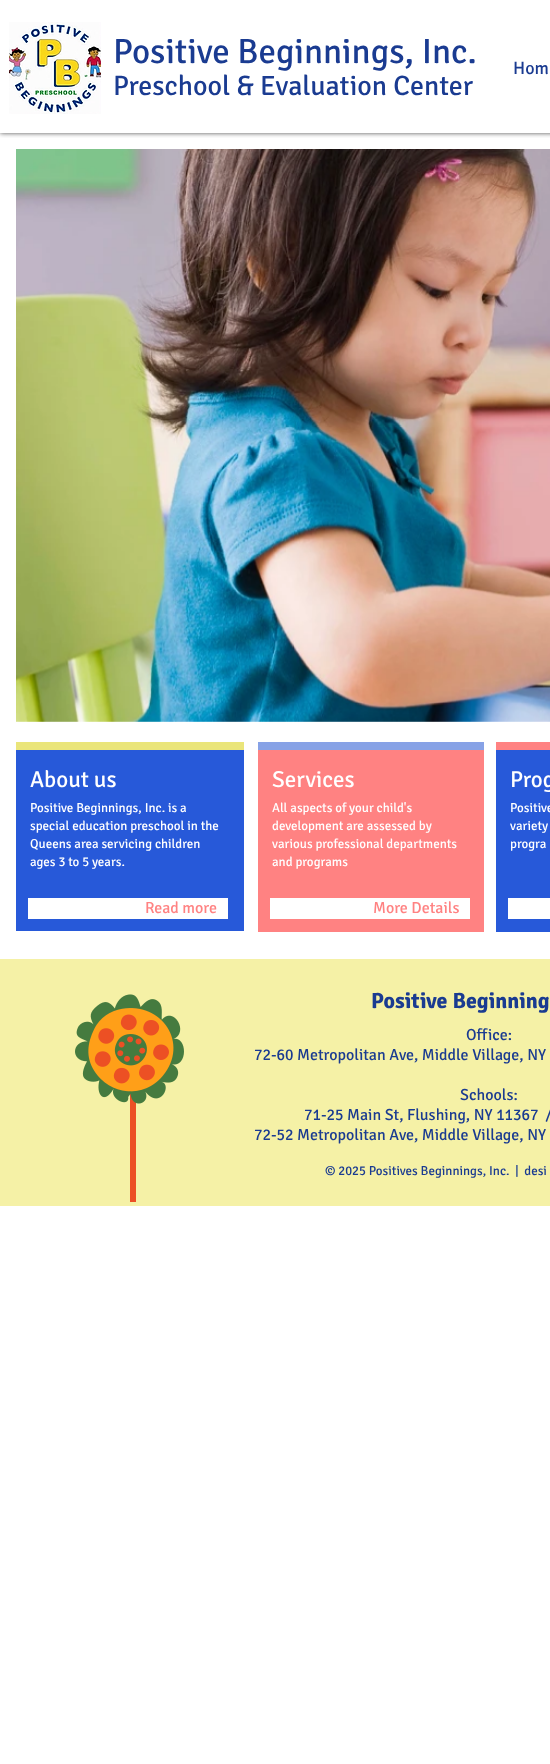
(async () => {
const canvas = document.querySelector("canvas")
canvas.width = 550
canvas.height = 1764
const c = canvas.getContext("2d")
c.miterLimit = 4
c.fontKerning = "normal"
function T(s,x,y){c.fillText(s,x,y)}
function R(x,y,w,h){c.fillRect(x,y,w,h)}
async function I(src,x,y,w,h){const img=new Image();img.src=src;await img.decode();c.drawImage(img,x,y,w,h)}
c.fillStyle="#fff"
R(0,0,550,1764)
c.save()
c.beginPath()
c.rect(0,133,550,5)
c.clip()
c.fillStyle="#000000b3"
c.filter="blur(2.5px)"
c.beginPath()
c.rect(0,0,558,133)
c.fill()
c.filter="none"
c.restore()
await I("1.png",9,22,92,92)
c.font="35px Signika"
c.fillStyle="#1a3b91"
T("Positive Beginnings, Inc.",113,63)
c.font="28px Signika"
T("Preschool & Evaluation Center",113,95)
c.font="18px Signika"
T("Hom",513,74)
await I("2.png",16,149,534,573)
c.fillStyle="#eae57a"
R(16,742,228,8)
c.fillStyle="#87a2e6"
R(258,742,226,8)
c.fillStyle="#ff8282"
R(496,742,54,8)
c.fillStyle="#2759d9"
R(16,750,228,181)
c.font="23px Signika"
c.fillStyle="#fff"
T("About us",30,787)
c.font="13px Signika"
T("Positive Beginnings, Inc. is a",30,812)
T("special education preschool in the",30,830)
T("Queens area servicing children",30,848)
T("ages 3 to 5 years.",30,866)
R(28,898,200,21)
c.font="16px Signika"
c.fillStyle="#ff8282"
T("Read more",145,913)
R(258,750,226,182)
c.font="23px Signika"
c.fillStyle="#fff"
T("Services",272,787)
c.font="13px Signika"
T("All aspects of your child's",272,812)
T("development are assessed by",272,830)
T("various professional departments",272,848)
T("and programs",272,866)
R(270,898,200,21)
c.font="16px Signika"
c.fillStyle="#ff8282"
T("More Details",373,913)
c.fillStyle="#2759d9"
R(496,750,54,182)
c.font="23px Signika"
c.fillStyle="#fff"
T("Prog",510,787)
c.font="13px Signika"
T("Positive",510,812)
T("variety",510,830)
T("progra",510,848)
R(508,898,42,21)
c.fillStyle="#f5f1a6"
R(0,959,550,247)
await I("3.png",75,994,109,208)
c.font="bold 22px Signika"
c.fillStyle="#1a3b91"
T("Positive Beginning",371,1008)
c.font="16px Signika"
T("Office:",466,1040)
T("72-60 Metropolitan Ave, Middle Village, NY",254,1060)
T("Schools:",460,1100)
T("71-25 Main St, Flushing, NY 11367  /",304,1120)
T("72-52 Metropolitan Ave, Middle Village, NY",254,1140)
c.font="13px Signika"
T("© 2025 Positives Beginnings, Inc.  |  desi",325,1175)
})()
